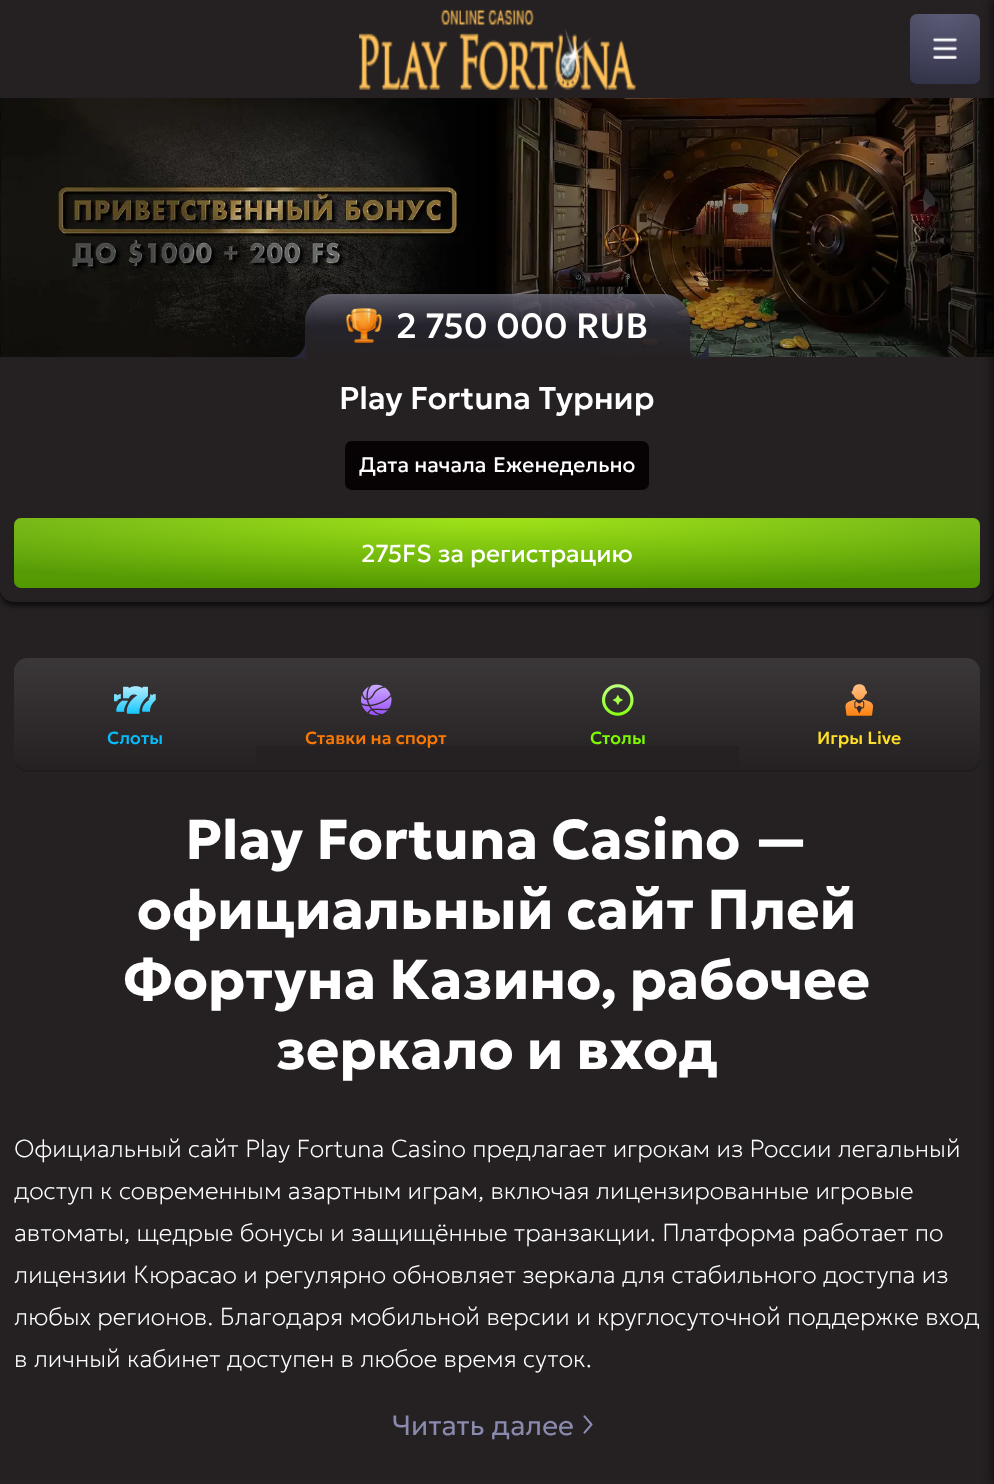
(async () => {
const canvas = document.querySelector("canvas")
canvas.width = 994
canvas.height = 1484
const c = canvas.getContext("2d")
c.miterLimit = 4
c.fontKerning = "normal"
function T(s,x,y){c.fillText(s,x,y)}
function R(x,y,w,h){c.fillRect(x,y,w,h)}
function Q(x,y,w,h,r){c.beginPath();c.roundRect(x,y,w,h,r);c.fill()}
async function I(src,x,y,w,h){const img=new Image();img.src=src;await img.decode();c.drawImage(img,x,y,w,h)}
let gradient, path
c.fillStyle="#252122"
R(0,0,994,1484)
await I("1.png",359,9,277,81)
gradient = c.createRadialGradient(945,14,0,945,14,70)
gradient.addColorStop(0,"#484868")
gradient.addColorStop(1,"#33334a")
c.fillStyle = gradient
Q(910,14,70,70,7)
gradient = c.createLinearGradient(945,14,945,84)
gradient.addColorStop(0,"#ffffff1a")
gradient.addColorStop(1,"#ffffff00")
c.fillStyle = gradient
Q(910,14,70,70,7)
await I("2.png",932,37,25,22)
c.fillStyle="#00000099"
c.filter="blur(2px)"
c.beginPath()
c.roundRect(0,361,994,245,14)
c.fill()
c.filter="none"
await I("3.png",0,98,994,259)
c.fillStyle="#252122"
c.beginPath()
c.roundRect(0,357,994,245,[0,0,14,14])
c.fill()
gradient = c.createRadialGradient(497,5320.6,0,497,5320.6,719)
gradient.addColorStop(0,"#96e000")
gradient.addColorStop(1,"#529900")
c.fillStyle = gradient
c.beginPath()
c.roundRect(14,518,966,70,7)
c.save()
c.clip()
c.scale(1,70 / 719)
c.fillRect(0,0,994,15243)
c.restore()
gradient = c.createLinearGradient(497,518,497,588)
gradient.addColorStop(0,"#ffffff1a")
gradient.addColorStop(1,"#ffffff00")
c.fillStyle = gradient
Q(14,518,966,70,7)
c.fillStyle="#1f1c1d"
path = new Path2D("M14 756v2c0 8 6 14 14 14h938c8 0 14-6 14-14v-2c0 8-6 14-14 14h-938c-8 0-14-6-14-14z")
c.fill(path)
await I("10.png",845,684,28,32)
gradient = c.createLinearGradient(859,658,859,770)
gradient.addColorStop(0,"#ffffff1a")
gradient.addColorStop(1,"#ffffff00")
c.fillStyle = gradient
c.beginPath()
c.roundRect(739,658,241,112,[0,14,0,14])
c.fill()
c.fillStyle="#00000080"
c.filter="blur(4.5px)"
c.beginPath()
c.rect(991,0,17,1484)
c.fill()
c.filter="none"
await I("4.png",346,308,36,35)
gradient = c.createLinearGradient(497,294,497,357)
gradient.addColorStop(0,"#ffffff33")
gradient.addColorStop(.5,"#ffffff00")
c.fillStyle = gradient
c.beginPath()
c.roundRect(305,294,385,63,[28,28,0,0])
c.fill()
c.font="500 35px Geologica"
c.fillStyle="#fff"
T("2 750 000 RUB",396,338)
await I("5.png",289,342,17,17)
await I("6.png",691,339,18,20)
c.font="500 31.5px Geologica"
T("Play Fortuna Турнир",339,409)
c.fillStyle="#070304"
Q(345,441,304,49,7)
c.font="21px Geologica"
c.fillStyle="#fff"
T("Дата начала",359,472)
T("Еженедельно",493,472)
c.font="24.5px Geologica"
T("275FS за регистрацию",361,562)
await I("7.png",114,686,42,28)
gradient = c.createLinearGradient(135,658,135,770)
gradient.addColorStop(0,"#ffffff1a")
gradient.addColorStop(1,"#ffffff00")
c.fillStyle = gradient
c.beginPath()
c.roundRect(14,658,242,112,[14,0,14,0])
c.fill()
c.font="500 17.5px Geologica"
c.fillStyle="#07bcf7"
T("Слоты",107,744)
await I("8.png",361,684,31,32)
gradient = c.createLinearGradient(376,658,376,770)
gradient.addColorStop(0,"#ffffff1a")
gradient.addColorStop(1,"#ffffff00")
c.fillStyle = gradient
R(256,658,241,88)
c.fillStyle="#fb7903"
T("Ставки на спорт",305,744)
await I("9.png",602,684,32,32)
gradient = c.createLinearGradient(618,658,618,770)
gradient.addColorStop(0,"#ffffff1a")
gradient.addColorStop(1,"#ffffff00")
c.fillStyle = gradient
R(497,658,242,88)
c.fillStyle="#7dfa00"
T("Столы",590,744)
c.fillStyle="#ffde26"
T("Игры Live",817,744)
c.font="bold 56px Geologica"
c.fillStyle="#fff"
T("Play Fortuna Casino —",185,859)
T("официальный сайт Плей",137,929)
T("Фортуна Казино, рабочее",123,999)
T("зеркало и вход",276,1069)
c.font="100 24.5px Geologica"
T("Официальный сайт Play Fortuna Casino предлагает игрокам из России легальный",14,1157)
T("доступ к современным азартным играм, включая лицензированные игровые",14,1199)
T("автоматы, щедрые бонусы и защищённые транзакции. Платформа работает по",14,1241)
T("лицензии Кюрасао и регулярно обновляет зеркала для стабильного доступа из",14,1283)
T("любых регионов. Благодаря мобильной версии и круглосуточной поддержке вход",14,1325)
T("в личный кабинет доступен в любое время суток.",14,1367)
c.font="300 28px Geologica"
c.fillStyle="#8a8aae"
T("Читать далее",392,1435)
await I("11.png",583,1415,10,19)
})()
